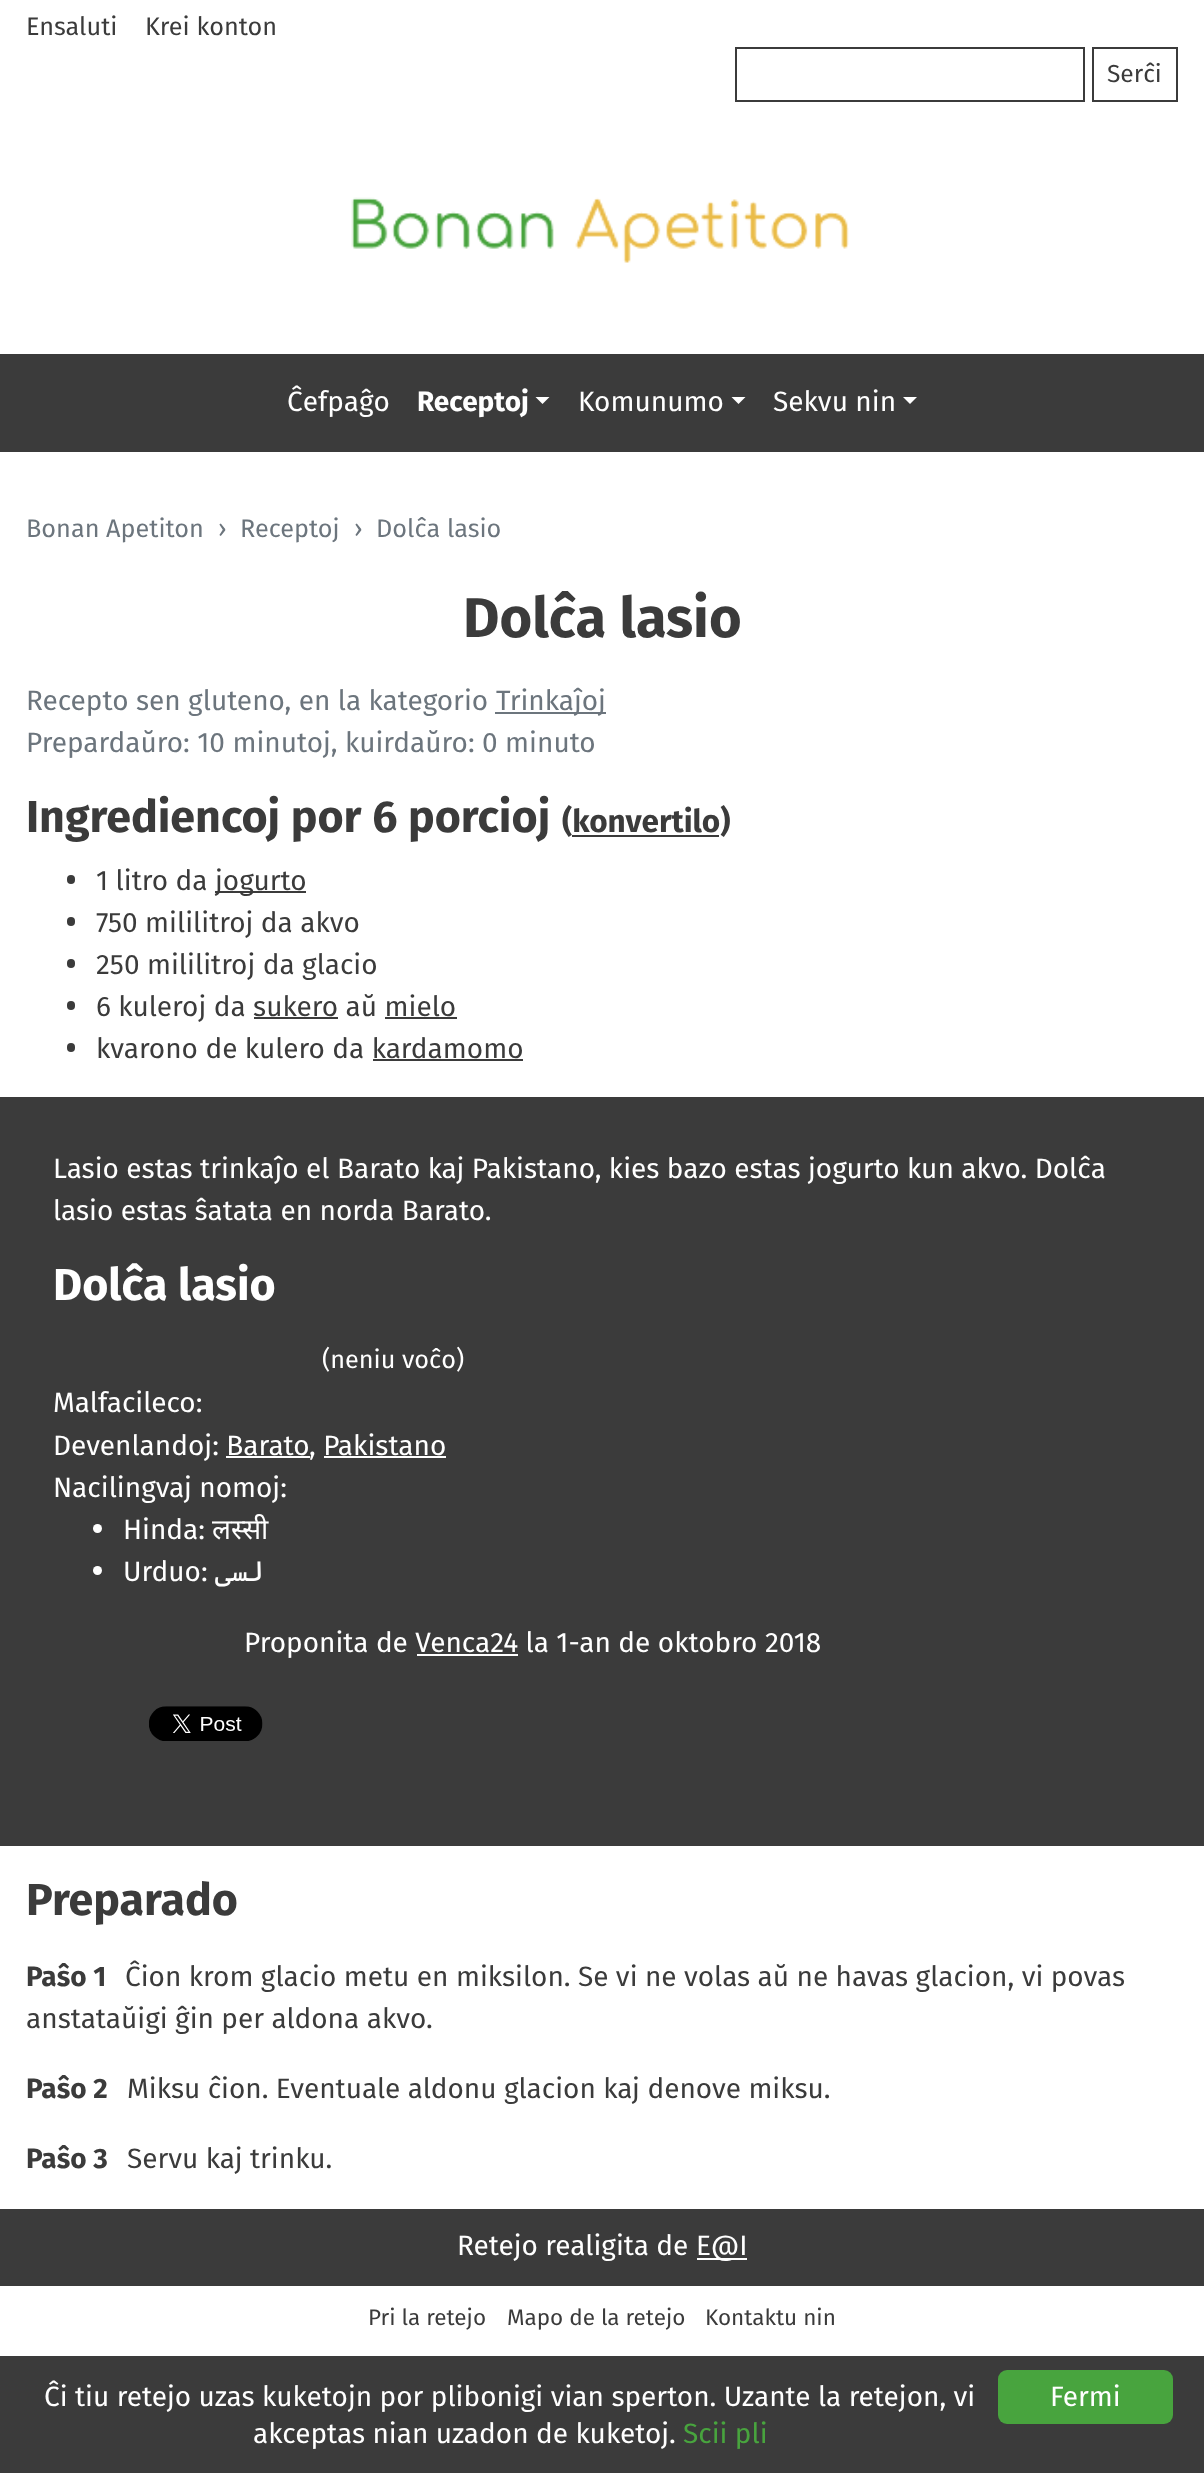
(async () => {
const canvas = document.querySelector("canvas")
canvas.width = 1204
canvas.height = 2473
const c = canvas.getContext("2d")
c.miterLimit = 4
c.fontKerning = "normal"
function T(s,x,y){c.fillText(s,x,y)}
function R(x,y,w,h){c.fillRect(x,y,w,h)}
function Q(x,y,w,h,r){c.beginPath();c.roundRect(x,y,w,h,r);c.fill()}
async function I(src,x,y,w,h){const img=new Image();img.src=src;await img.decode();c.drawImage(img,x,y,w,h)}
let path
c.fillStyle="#fff"
R(0,0,1204,2473)
c.font="25.25px Fira Sans"
c.fillStyle="#3b3b3b"
T("Ensaluti",26,35)
T("Krei konton",145,35)
c.strokeStyle="#3b3b3b"
c.lineWidth=2
c.strokeRect(736,48,348,53)
c.strokeRect(1093,48,84,53)
c.font="24.5px Fira Sans"
T("Serĉi",1107,82)
await I("1.png",351,197,498,66)
R(0,354,1204,98)
c.font="28px Fira Sans"
c.fillStyle="#fff"
T("Ĉefpaĝo",287,411)
c.font="bold 28px Fira Sans"
T("Receptoj",417,411)
path = new Path2D("M535.5 397h14l-7 7z")
c.fill(path)
c.font="28px Fira Sans"
T("Komunumo",578,411)
path = new Path2D("M731.5 397h14l-7 7z")
c.fill(path)
T("Sekvu nin",773,411)
path = new Path2D("M903 397h14l-7 7z")
c.fill(path)
c.font="25.25px Fira Sans"
c.fillStyle="#6c757d"
T("Bonan Apetiton",26,537)
T("›",218,537)
T("Receptoj",240,537)
T("›",354,537)
T("Dolĉa lasio",376,537)
c.font="bold 56px Fira Sans"
c.fillStyle="#3b3b3b"
T("Dolĉa lasio",463,637)
c.font="28px Fira Sans"
c.fillStyle="#6c757d"
T("Recepto sen gluteno, en la kategorio",26,710)
R(495,712,111,2)
T("Trinkaĵoj",496,710)
T("Prepardaŭro: 10 minutoj, kuirdaŭro: 0 minuto",26,752)
c.font="bold 44.75px Fira Sans"
c.fillStyle="#3b3b3b"
T("Ingrediencoj por 6 porcioj",26,832)
c.font="bold 31.5px Fira Sans"
T("(konvertilo)",562,832)
R(572,835,147,2)
Q(67,875,8,9,4)
c.font="28px Fira Sans"
T("1 litro da",96,890)
R(215,891,91,2)
T("jogurto",215,890)
Q(67,917,8,9,4)
T("750 mililitroj da akvo",96,932)
Q(67,959,8,9,4)
T("250 mililitroj da glacio",96,974)
Q(67,1001,8,9,4)
T("6 kuleroj da sukero aŭ mielo",96,1016)
R(254,1017,84,2)
R(385,1017,72,2)
Q(67,1043,8,9,4)
T("kvarono de kulero da kardamomo",96,1058)
R(373,1059,150,2)
R(0,1097,1204,749)
c.fillStyle="#fff"
T("Lasio estas trinkaĵo el Barato kaj Pakistano, kies bazo estas jogurto kun akvo. Dolĉa",53,1178)
T("lasio estas ŝatata en norda Barato.",53,1220)
c.font="bold 44.75px Fira Sans"
T("Dolĉa lasio",53,1300)
c.font="25.25px Fira Sans"
T("(neniu voĉo)",322,1368)
c.font="28px Fira Sans"
T("Malfacileco:",53,1412)
T("Devenlandoj: Barato",53,1455)
R(226,1456,84,2)
T(", Pakistano",309,1455)
R(324,1456,122,2)
T("Nacilingvaj nomoj:",53,1497)
c.beginPath()
c.arc(97.5,1528.5,4.5,0,7)
c.fill()
T("Hinda:",123,1539)
c.font="28px Noto Sans"
T("लस्सी",212,1539)
c.beginPath()
c.arc(97.5,1570.5,4.5,0,7)
c.fill()
c.font="28px Fira Sans"
T("Urduo:",123,1581)
c.direction="rtl"
c.font="28px Cascadia Code"
T("لسی",264,1581)
c.direction="ltr"
c.font="28px Fira Sans"
T("Proponita de Venca24 la 1-an de oktobro 2018",244,1652)
R(417,1654,101,2)
await I("2.png",149,1706,114,35)
c.font="bold 44.75px Fira Sans"
c.fillStyle="#3b3b3b"
T("Preparado",26,1915)
c.font="bold 28px Fira Sans"
T("Paŝo 1",26,1986)
c.font="28px Fira Sans"
T("Ĉion krom glacio metu en miksilon. Se vi ne volas aŭ ne havas glacion, vi povas",125,1986)
T("anstataŭigi ĝin per aldona akvo.",26,2028)
c.font="bold 28px Fira Sans"
T("Paŝo 2",26,2098)
c.font="28px Fira Sans"
T("Miksu ĉion. Eventuale aldonu glacion kaj denove miksu.",127,2098)
c.font="bold 28px Fira Sans"
T("Paŝo 3",26,2168)
c.font="28px Fira Sans"
T("Servu kaj trinku.",127,2168)
R(0,2209,1204,77)
c.fillStyle="#fff"
T("Retejo realigita de",457,2255)
R(697,2258,50,2)
T("E@I",696,2255)
c.font="22.5px Fira Sans"
c.fillStyle="#3b3b3b"
T("Pri la retejo",368,2325)
T("Mapo de la retejo",507,2325)
T("Kontaktu nin",705,2325)
R(0,2356,1204,117)
c.font="28px Fira Sans"
c.fillStyle="#fff"
T("Ĉi tiu retejo uzas kuketojn por plibonigi vian sperton. Uzante la retejon, vi",44,2406)
T("akceptas nian uzadon de kuketoj.",253,2443)
c.fillStyle="#48a43e"
T("Scii pli",683,2443)
Q(998,2370,175,54,9)
c.fillStyle="#fff"
T("Fermi",1050,2406)
})()
